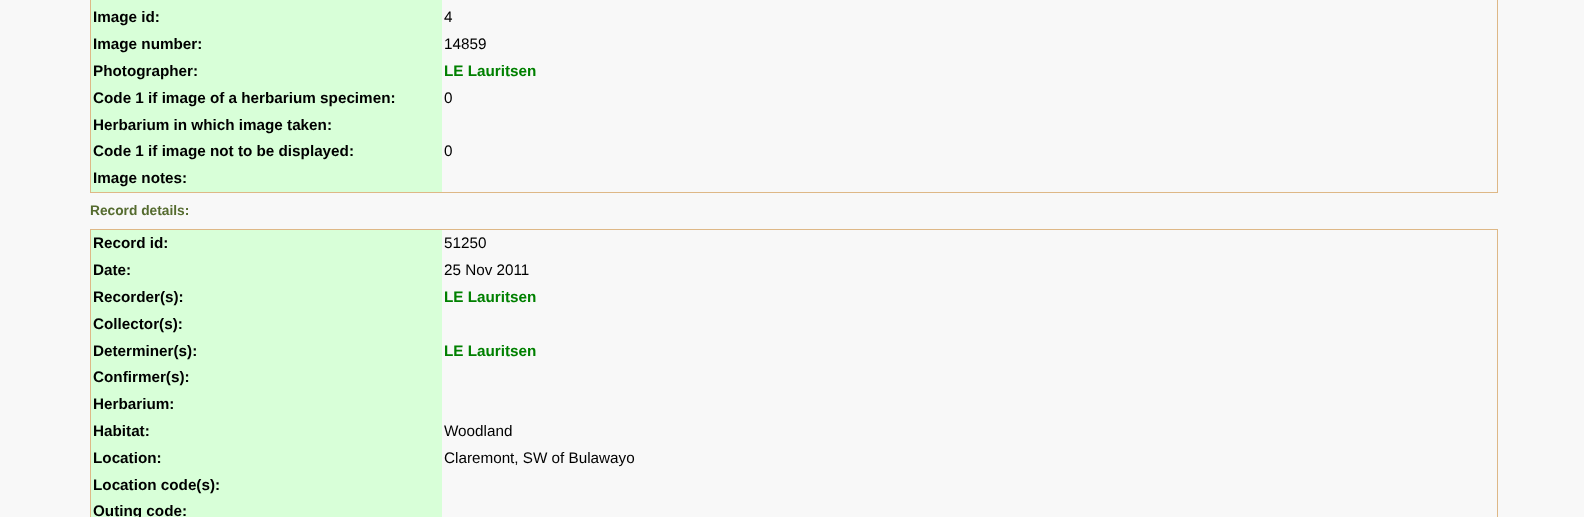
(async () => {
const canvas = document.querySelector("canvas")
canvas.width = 1584
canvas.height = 517
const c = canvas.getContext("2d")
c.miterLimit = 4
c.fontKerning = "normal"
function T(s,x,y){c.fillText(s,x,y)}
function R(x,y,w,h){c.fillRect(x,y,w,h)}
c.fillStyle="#f8f8f8"
R(0,0,1584,517)
c.fillStyle="#deb887"
R(1497,0,1,193)
R(90,192,1408,1)
R(90,0,1,193)
c.fillStyle="#d8ffd8"
R(91,0,351,192)
c.font="bold 15.25px Liberation Sans"
c.fillStyle="#000"
T("Image id:",93,22)
c.font="15.25px Liberation Sans"
T("4",444,22)
c.font="bold 15.25px Liberation Sans"
T("Image number:",93,49)
c.font="15.25px Liberation Sans"
T("14859",444,49)
c.font="bold 15.25px Liberation Sans"
T("Photographer:",93,76)
c.fillStyle="#008000"
T("LE Lauritsen",444,76)
c.fillStyle="#000"
T("Code 1 if image of a herbarium specimen:",93,103)
c.font="15.25px Liberation Sans"
T("0",444,103)
c.font="bold 15.25px Liberation Sans"
T("Herbarium in which image taken:",93,130)
T("Code 1 if image not to be displayed:",93,156)
c.font="15.25px Liberation Sans"
T("0",444,156)
c.font="bold 15.25px Liberation Sans"
T("Image notes:",93,183)
c.font="bold 13.75px Liberation Sans"
c.fillStyle="#556b2f"
T("Record details:",90,215)
c.fillStyle="#deb887"
R(90,229,1408,1)
R(1497,229,1,288)
R(90,229,1,288)
c.fillStyle="#d8ffd8"
R(91,230,351,287)
c.font="bold 15.25px Liberation Sans"
c.fillStyle="#000"
T("Record id:",93,248)
c.font="15.25px Liberation Sans"
T("51250",444,248)
c.font="bold 15.25px Liberation Sans"
T("Date:",93,275)
c.font="15.25px Liberation Sans"
T("25 Nov 2011",444,275)
c.font="bold 15.25px Liberation Sans"
T("Recorder(s):",93,302)
c.fillStyle="#008000"
T("LE Lauritsen",444,302)
c.fillStyle="#000"
T("Collector(s):",93,329)
T("Determiner(s):",93,356)
c.fillStyle="#008000"
T("LE Lauritsen",444,356)
c.fillStyle="#000"
T("Confirmer(s):",93,382)
T("Herbarium:",93,409)
T("Habitat:",93,436)
c.font="15.25px Liberation Sans"
T("Woodland",444,436)
c.font="bold 15.25px Liberation Sans"
T("Location:",93,463)
c.font="15.25px Liberation Sans"
T("Claremont, SW of Bulawayo",444,463)
c.font="bold 15.25px Liberation Sans"
T("Location code(s):",93,490)
T("Outing code:",93,516)
})()
